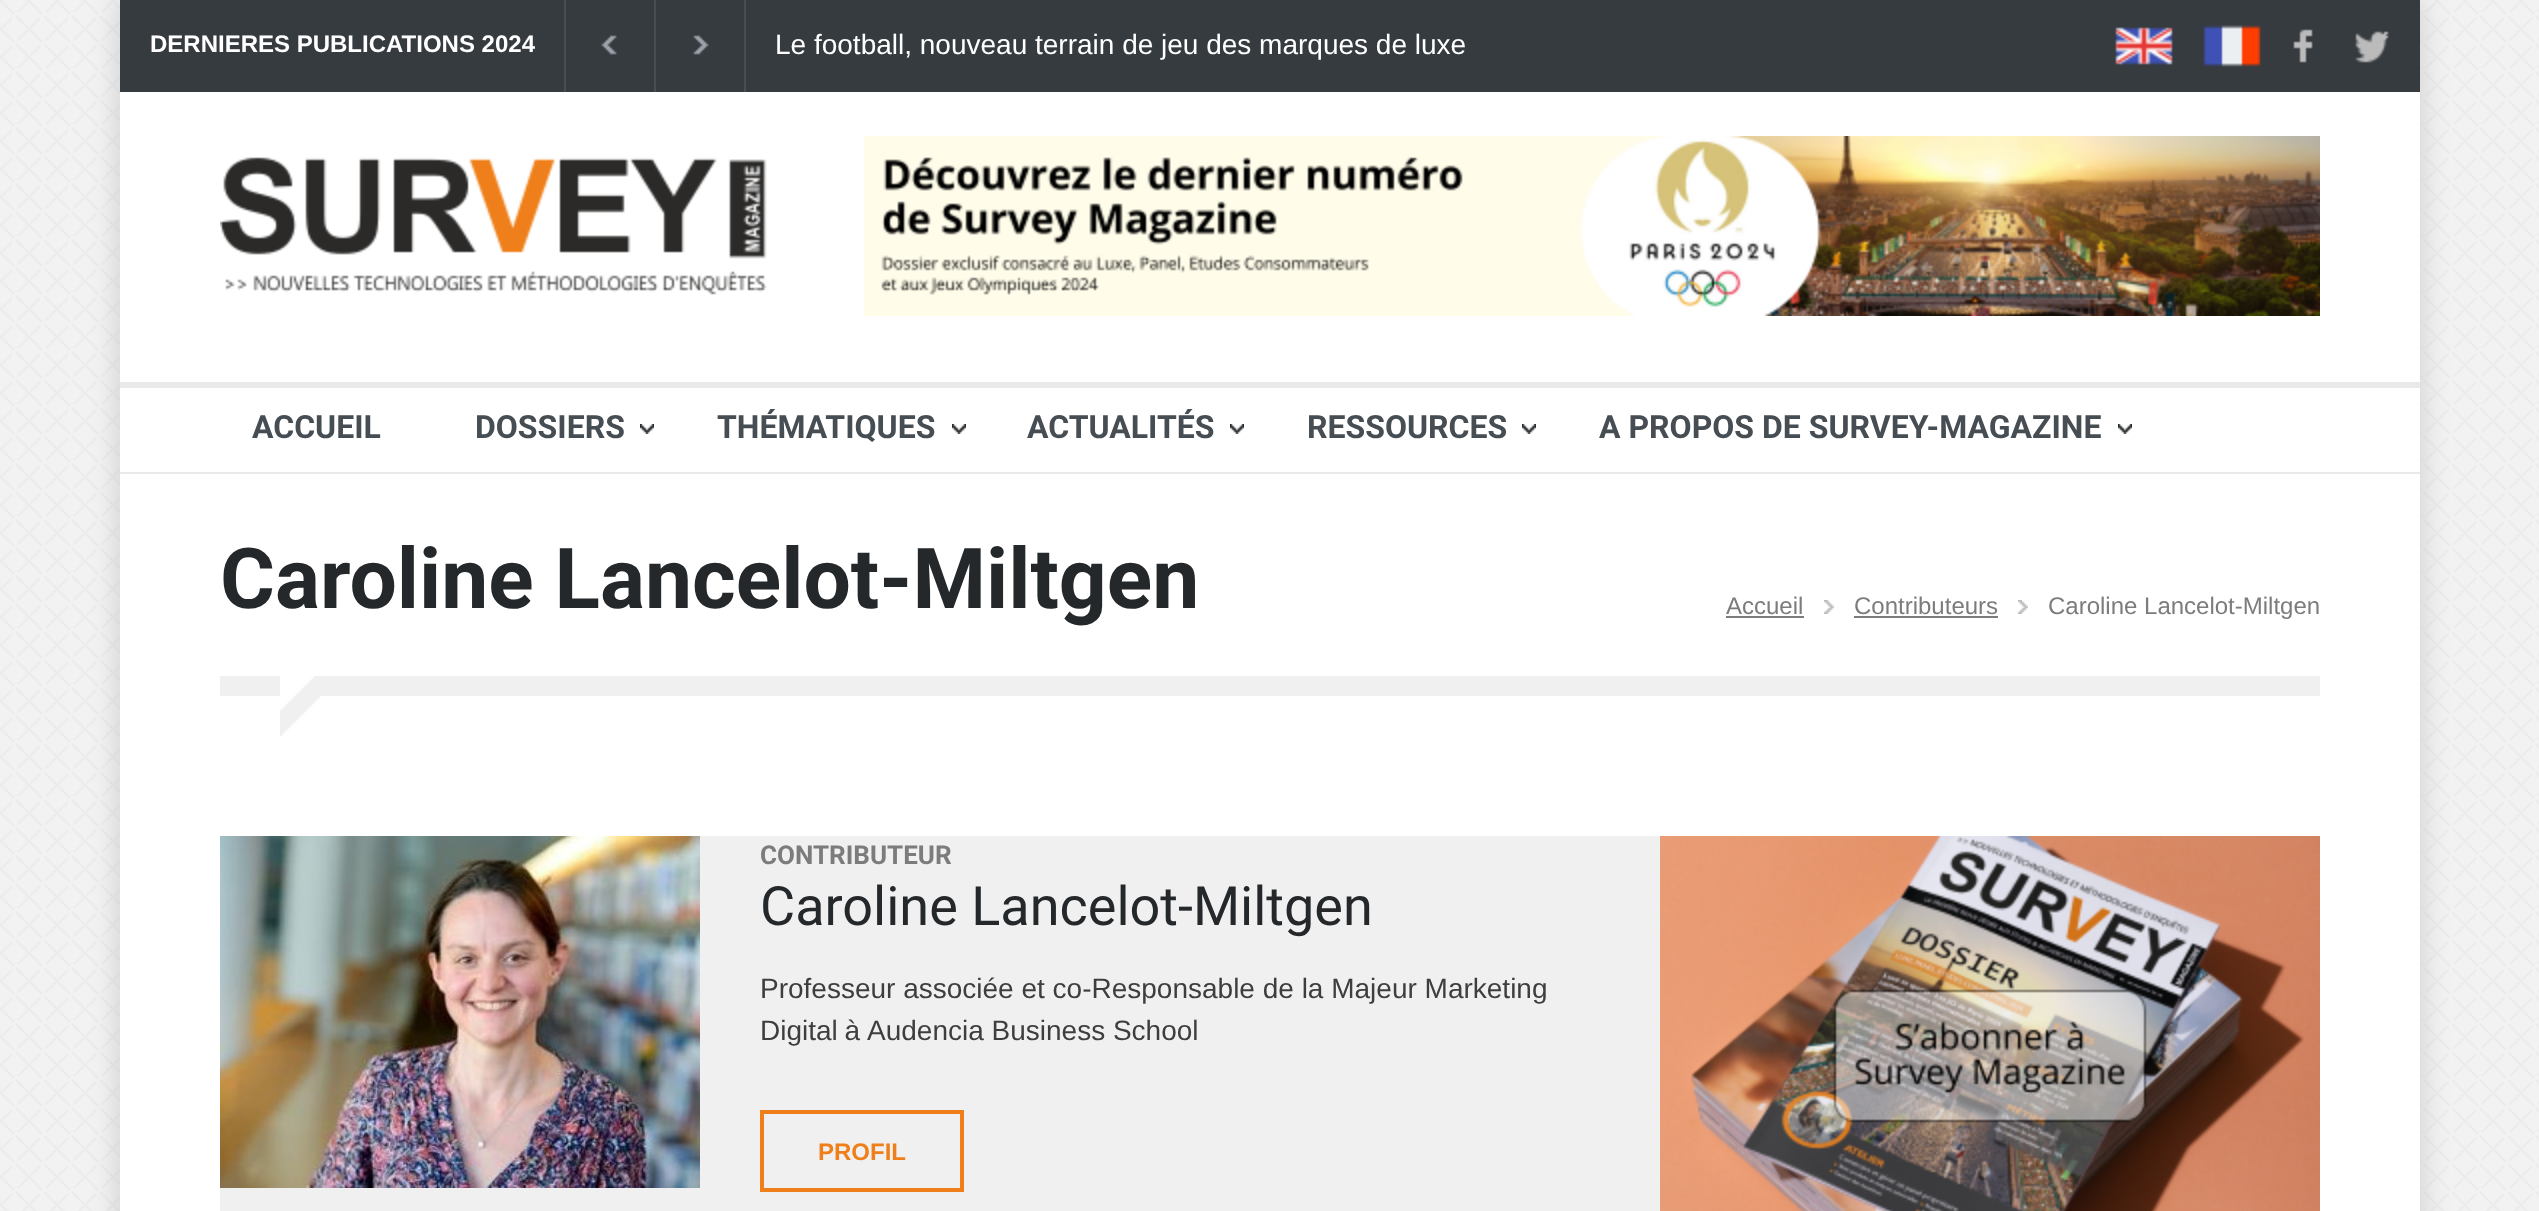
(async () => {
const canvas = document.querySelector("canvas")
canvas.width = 2539
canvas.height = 1211
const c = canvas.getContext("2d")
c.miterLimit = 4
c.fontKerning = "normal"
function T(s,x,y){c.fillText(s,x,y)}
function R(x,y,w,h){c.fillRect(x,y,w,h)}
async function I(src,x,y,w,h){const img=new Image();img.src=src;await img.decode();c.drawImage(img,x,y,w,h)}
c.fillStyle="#fff"
R(0,0,2539,1211)
await I("1.png",0,0,2539,1211)
c.fillStyle="#00000026"
c.filter="blur(15px)"
c.beginPath()
c.rect(120,0,2300,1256)
c.fill()
c.filter="none"
c.fillStyle="#fff"
R(120,92,2300,1119)
c.fillStyle="#363b40"
R(120,0,2300,92)
c.fillStyle="#464d53"
R(564,0,2,92)
c.font="bold 24px Liberation Sans"
c.fillStyle="#fff"
T("DERNIERES PUBLICATIONS 2024",150,52)
c.fillStyle="#464d53"
R(654,0,2,92)
await I("2.png",601,35,16,20)
R(744,0,2,92)
await I("3.png",693,35,16,20)
c.font="28px Liberation Sans"
c.fillStyle="#fff"
T("Le football, nouveau terrain de jeu des marques de luxe",775,54)
await I("4.png",2115,27,58,38)
await I("5.png",2203,25,58,42)
await I("6.png",2293,29,20,34)
await I("7.png",2355,31,34,32)
await I("8.png",220,157,547,138)
await I("9.png",864,136,1456,180)
c.fillStyle="#e9e9e9"
R(120,382,2300,6)
R(120,472,2300,2)
c.font="bold 32px Roboto"
c.fillStyle="#464d53"
T("ACCUEIL",252,438)
await I("10.png",640,424,14,10)
T("DOSSIERS",475,438)
await I("10.png",952,424,14,10)
T("THÉMATIQUES",717,438)
await I("10.png",1230,424,14,10)
T("ACTUALITÉS",1027,438)
await I("10.png",1522,424,14,10)
T("RESSOURCES",1307,438)
await I("10.png",2118,424,14,10)
T("A PROPOS DE SURVEY-MAGAZINE",1599,438)
c.font="bold 84px Roboto"
c.fillStyle="#25282a"
T("Caroline Lancelot-Miltgen",220,608)
c.font="24px Liberation Sans"
c.fillStyle="#7c7c7c"
T("Accueil",1726,614)
R(1726,616,78,2)
await I("11.png",1824,600,10,14)
T("Contributeurs",1854,614)
R(1854,616,144,2)
await I("11.png",2018,600,10,14)
T("Caroline Lancelot-Miltgen",2048,614)
c.fillStyle="#f0f0f0"
R(220,676,60,20)
await I("12.png",280,676,40,60)
R(320,676,2000,20)
R(700,836,960,375)
await I("13.png",1660,836,660,375)
await I("14.png",220,836,480,352)
R(220,1188,480,23)
c.font="bold 26px Roboto"
c.fillStyle="#7c7c7c"
T("CONTRIBUTEUR",760,864)
c.font="54px Roboto"
c.fillStyle="#25282a"
T("Caroline Lancelot-Miltgen",760,925)
c.font="28px Liberation Sans"
c.fillStyle="#3e3e3e"
T("Professeur associée et co-Responsable de la Majeur Marketing",760,998)
c.wordSpacing="-1px"
T("Digital à",760,1040)
c.wordSpacing="0px"
T("Audencia Business School",867,1040)
c.strokeStyle="#ef7f1a"
c.lineWidth=4
c.strokeRect(762,1112,200,78)
c.font="bold 24px Liberation Sans"
c.fillStyle="#ef7f1a"
T("PROFIL",818,1160)
})()
